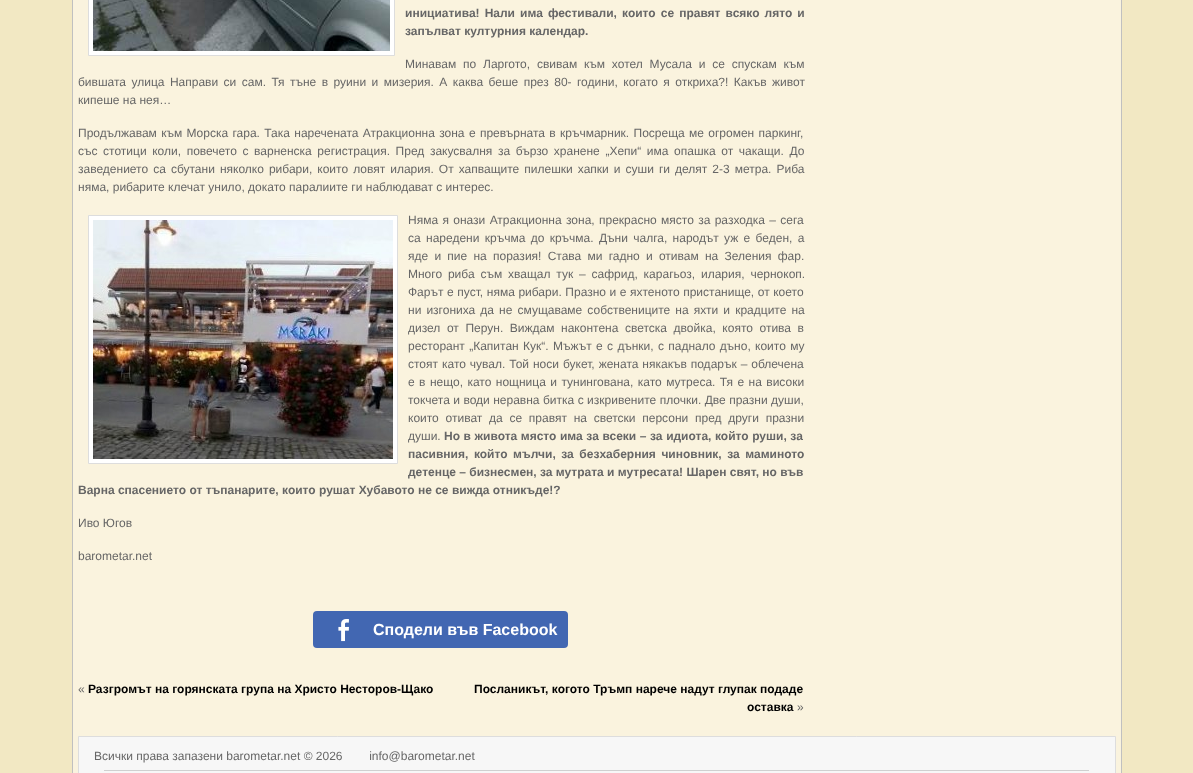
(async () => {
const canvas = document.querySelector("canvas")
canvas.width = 1193
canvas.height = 773
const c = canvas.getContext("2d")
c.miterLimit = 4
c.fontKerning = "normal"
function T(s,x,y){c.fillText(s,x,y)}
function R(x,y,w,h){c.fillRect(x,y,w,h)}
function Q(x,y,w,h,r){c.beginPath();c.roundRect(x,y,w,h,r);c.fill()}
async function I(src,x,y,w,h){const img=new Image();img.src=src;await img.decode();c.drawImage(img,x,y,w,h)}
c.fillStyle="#f2e8c3"
R(0,0,1193,773)
c.fillStyle="#c0c0c0"
R(1121,0,1,773)
R(72,0,1,773)
c.fillStyle="#faf3de"
R(73,0,1048,773)
c.fillStyle="#fff"
c.beginPath()
c.rect(88.5,-.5,306,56)
c.fill()
c.strokeStyle="#ddd"
c.stroke()
await I("1.png",93,0,297,51)
c.wordSpacing="1.75px"
c.font="bold 12px Liberation Sans"
c.fillStyle="#666"
T("инициатива! Нали има фестивали, които се правят всяко лято и",405,17)
c.wordSpacing="0px"
T("запълват културния календар.",405,35)
c.wordSpacing="3.5px"
c.font="12px Liberation Sans"
T("Минавам по Ларгото, свивам към хотел Мусала и се спускам към",405,68)
c.wordSpacing="2.1px"
T("бившата улица Направи си сам. Тя тъне в руини и мизерия. А каква беше през 80- години, когато я откриха?! Какъв живот",78,86)
c.wordSpacing="0px"
T("кипеше на нея…",78,104)
c.wordSpacing="1px"
T("Продължавам към Морска гара. Така наречената Атракционна зона е превърната в кръчмарник. Посреща ме огромен паркинг,",78,137)
c.wordSpacing="2.25px"
T("със стотици коли, повечето с варненска регистрация. Пред закусвалня за бързо хранене „Хепи“ има опашка от чакащи. До",78,155)
c.wordSpacing="1.7px"
T("заведението са сбутани няколко рибари, които ловят илария. От хапващите пилешки хапки и суши ги делят 2-3 метра. Риба",78,173)
c.wordSpacing="0px"
T("няма, рибарите клечат унило, докато паралиите ги наблюдават с интерес.",78,191)
c.fillStyle="#fff"
c.beginPath()
c.rect(88.5,215.5,309,248)
c.fill()
c.stroke()
await I("2.png",93,220,300,239)
c.wordSpacing="1px"
c.fillStyle="#666"
T("Няма я онази Атракционна зона, прекрасно място за разходка – сега",408,224)
c.wordSpacing="2px"
T("са наредени кръчма до кръчма. Дъни чалга, народът уж е беден, а",408,242)
c.wordSpacing="2.9px"
T("яде и пие на поразия! Става ми гадно и отивам на Зеления фар.",408,260)
c.wordSpacing="2.5px"
T("Много риба съм хващал тук – сафрид, карагьоз, илария, чернокоп.",408,278)
c.wordSpacing="0.25px"
T("Фарът е пуст, няма рибари. Празно и е яхтеното пристанище, от което",408,296)
c.wordSpacing="1.75px"
T("ни изгониха да не смущаваме собствениците на яхти и крадците на",408,314)
c.wordSpacing="3.25px"
T("дизел от Перун. Виждам наконтена светска двойка, която отива в",408,332)
c.wordSpacing="1px"
T("ресторант „Капитан Кук“. Мъжът е с дънки, с паднало дъно, които му",408,350)
c.wordSpacing="0.6px"
T("стоят като чувал. Той носи букет, жената някакъв подарък – облечена",408,368)
c.wordSpacing="1.1px"
T("е в нещо, като нощница и тунингована, като мутреса. Тя е на високи",408,386)
c.wordSpacing="0.1px"
T("токчета и води неравна битка с изкривените плочки. Две празни души,",408,404)
c.wordSpacing="3.4px"
T("които отиват да се правят на светски персони пред други празни",408,422)
c.wordSpacing="0px"
T("души.",408,440)
c.wordSpacing="0.25px"
c.font="bold 12px Liberation Sans"
T("Но в живота място има за всеки – за идиота, който руши, за",444,440)
c.wordSpacing="2.25px"
T("пасивния, който мълчи, за безхаберния чиновник, за маминото",408,458)
c.wordSpacing="0px"
T("детенце – бизнесмен, за мутрата и мутресата! Шарен свят, но във",408,476)
T("Варна спасението от тъпанарите, които рушат Хубавото не се вижда отникъде!?",78,494)
c.font="12px Liberation Sans"
T("Иво Югов",78,527)
T("barometar.net",78,560)
c.fillStyle="#4267b2"
Q(313,611,255,37,4)
await I("3.png",338,619,11,23)
c.font="bold 16px Liberation Sans"
c.fillStyle="#fff"
T("Сподели във Facebook",373,635)
c.font="12px Liberation Sans"
c.fillStyle="#666"
T("«",78,693)
c.font="bold 12px Liberation Sans"
c.fillStyle="#000"
T("Разгромът на горянската група на Христо Несторов-Щако",88,693)
T("Посланикът, когото Тръмп нарече надут глупак подаде",474,693)
T("оставка",747,711)
c.font="12px Liberation Sans"
c.fillStyle="#666"
T("»",797,711)
c.fillStyle="#f7f7f7"
c.beginPath()
c.rect(78.5,736.5,1037,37)
c.fill()
c.stroke()
c.fillStyle="#666"
T("Всички права запазени barometar.net © 2026        info@barometar.net",94,760)
c.fillStyle="#d0d0d0"
R(104,770,985,1)
})()
